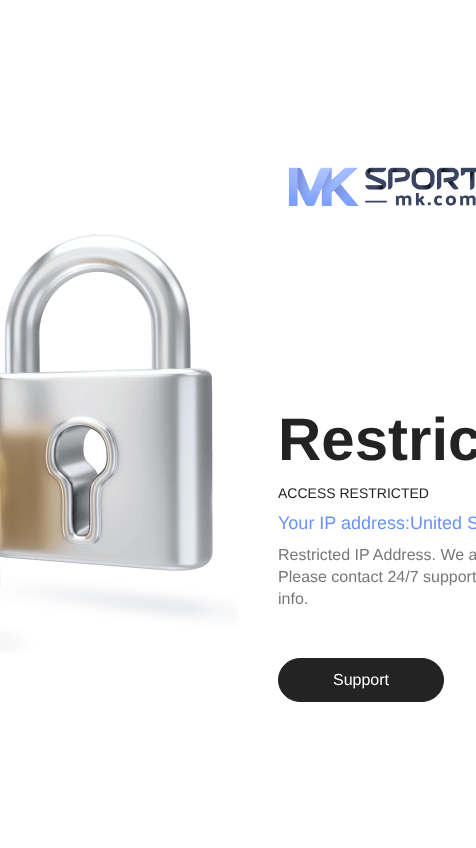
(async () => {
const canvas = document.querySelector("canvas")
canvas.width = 476
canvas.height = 848
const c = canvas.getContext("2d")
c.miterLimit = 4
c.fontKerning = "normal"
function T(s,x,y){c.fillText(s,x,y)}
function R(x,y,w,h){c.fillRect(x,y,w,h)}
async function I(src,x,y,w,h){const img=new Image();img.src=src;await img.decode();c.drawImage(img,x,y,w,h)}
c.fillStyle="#fff"
R(0,0,476,848)
await I("1.png",0,234,239,419)
await I("2.png",288,167,188,39)
c.font="bold 60px Liberation Sans"
c.fillStyle="#232323"
T("Restric",278,460)
c.font="14px Liberation Sans"
T("ACCESS RESTRICTED",278,498)
c.font="18px Liberation Sans"
c.fillStyle="#6992ff"
T("Your IP address:United S",278,529)
c.font="16px Liberation Sans"
c.fillStyle="#787878"
T("Restricted IP Address. We a",278,560)
T("Please contact 24/7 support",278,582)
T("info.",278,604)
c.fillStyle="#232323"
c.beginPath()
c.roundRect(278.5,658.5,165,43,21.5)
c.fill()
c.strokeStyle="#232323"
c.stroke()
c.fillStyle="#fff"
T("Support",333,685)
})()
